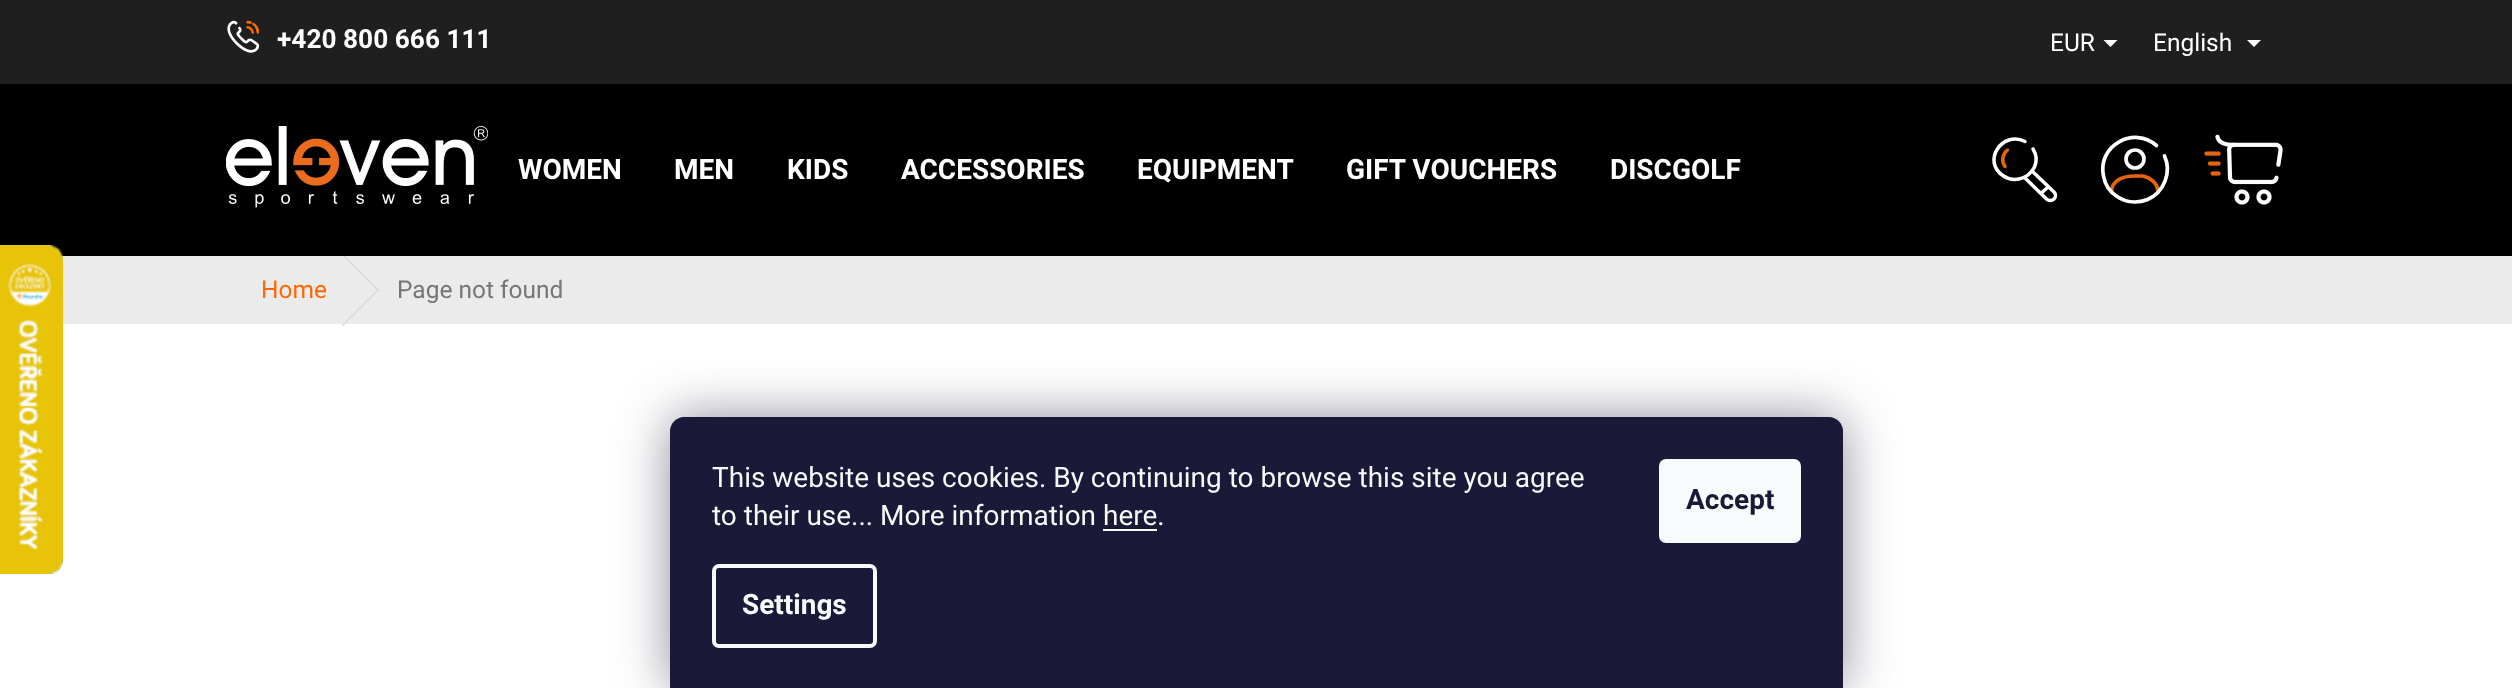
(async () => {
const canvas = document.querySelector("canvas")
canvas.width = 2512
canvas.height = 688
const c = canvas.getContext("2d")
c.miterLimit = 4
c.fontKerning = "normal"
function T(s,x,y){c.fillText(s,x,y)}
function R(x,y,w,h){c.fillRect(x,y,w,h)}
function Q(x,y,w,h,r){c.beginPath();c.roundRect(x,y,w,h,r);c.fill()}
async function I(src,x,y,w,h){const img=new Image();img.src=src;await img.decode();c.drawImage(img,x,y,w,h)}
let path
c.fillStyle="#fff"
R(0,0,2512,688)
c.fillStyle="#1f1f1f"
R(0,0,2512,84)
await I("1.png",227,20,33,33)
c.font="bold 26.25px Roboto"
c.fillStyle="#fff"
T("+420 800 666 111",277,48)
c.font="24.5px Roboto"
T("EUR",2050,51)
path = new Path2D("M2103.5 40h14l-7 7z")
c.fill(path)
T("English",2153,51)
path = new Path2D("M2247 40h14l-7 7z")
c.fill(path)
c.fillStyle="#ebebeb"
R(60,256,2452,68)
c.fillStyle="#dadada"
path = new Path2D("M342 255l1-1l36.5 36.5l-1 1z")
c.fill(path)
c.fillStyle="#000"
R(0,84,2512,172)
await I("2.png",226,126,262,82)
c.font="bold 28px Roboto"
c.fillStyle="#fff"
T("WOMEN",518,179)
T("MEN",674,179)
T("KIDS",787,179)
T("ACCESSORIES",901,179)
T("EQUIPMENT",1137,179)
T("GIFT VOUCHERS",1346,179)
T("DISCGOLF",1610,179)
path = new Path2D("M2041.5 193l6-5.5m-14.5-38.5c3.5 5.5 4 12 1.5 18c-3 6-8.5 10.5-15.5 12c-5 1-11 0-15.5-3c-22.5-14.5-1-46 21.5-34.5")
c.strokeStyle="#fff"
c.lineWidth=3.5
c.lineCap="round"
c.lineJoin="round"
c.stroke(path)
path = new Path2D("M2005 166.5c-4-5.5-2.5-12.5 2.5-16.5")
c.strokeStyle="#e8640c"
c.stroke(path)
path = new Path2D("M2032 171l22 21c2 2 2 5 0 7c-2 2-5.5 2-7.5 0l-22-21.5")
c.strokeStyle="#fff"
c.stroke(path)
path = new Path2D("M2111.5 192c0-12.5 13-16 22.5-16h8.5c8 1.5 15.5 7.5 15.5 16")
c.strokeStyle="#e8640c"
c.lineWidth=3.7
c.lineJoin="miter"
c.stroke(path)
c.beginPath()
c.arc(2135,159,9,0,7)
c.strokeStyle="#fff"
c.stroke()
path = new Path2D("M2164.5 156c7.5 16-.5 36.5-17 43.5c-10 4-21.5 3-30.5-3c-7-4.5-12-12-13.5-20.5c-6.5-30.5 30.5-50.5 53-30.5")
c.lineJoin="round"
c.stroke(path)
await I("3.png",2204,134,79,71)
c.font="24.5px Roboto"
c.fillStyle="#ff6700"
T("Home",261,298)
c.fillStyle="#dadada"
path = new Path2D("M378.5 288.5l1 1l-36.5 36.5l-1-1z")
c.fill(path)
c.fillStyle="#767676"
T("Page not found",397,298)
await I("4.png",0,245,63,329)
c.fillStyle="#1b193980"
c.filter="blur(26px)"
c.beginPath()
c.roundRect(670,417,1173,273,14)
c.fill()
c.filter="none"
c.fillStyle="#1a1937"
path = new Path2D("M684 417h1145c7.5 0 14 6.5 14 14v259h-1173v-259c0-7.5 6.5-14 14-14z")
c.fill(path)
c.font="28px Roboto"
c.fillStyle="#f8fafb"
T("This website uses cookies. By continuing to browse this site you agree",712,487)
T("to their use... More information here.",712,525)
R(1103,529,54,2)
c.beginPath()
c.roundRect(714,566,161,80,5)
c.strokeStyle="#f8fafb"
c.lineWidth=4
c.lineJoin="miter"
c.stroke()
c.font="bold 28px Roboto"
T("Settings",742,614)
Q(1659,459,142,84,7)
c.fillStyle="#1a1937"
T("Accept",1686,509)
})()
